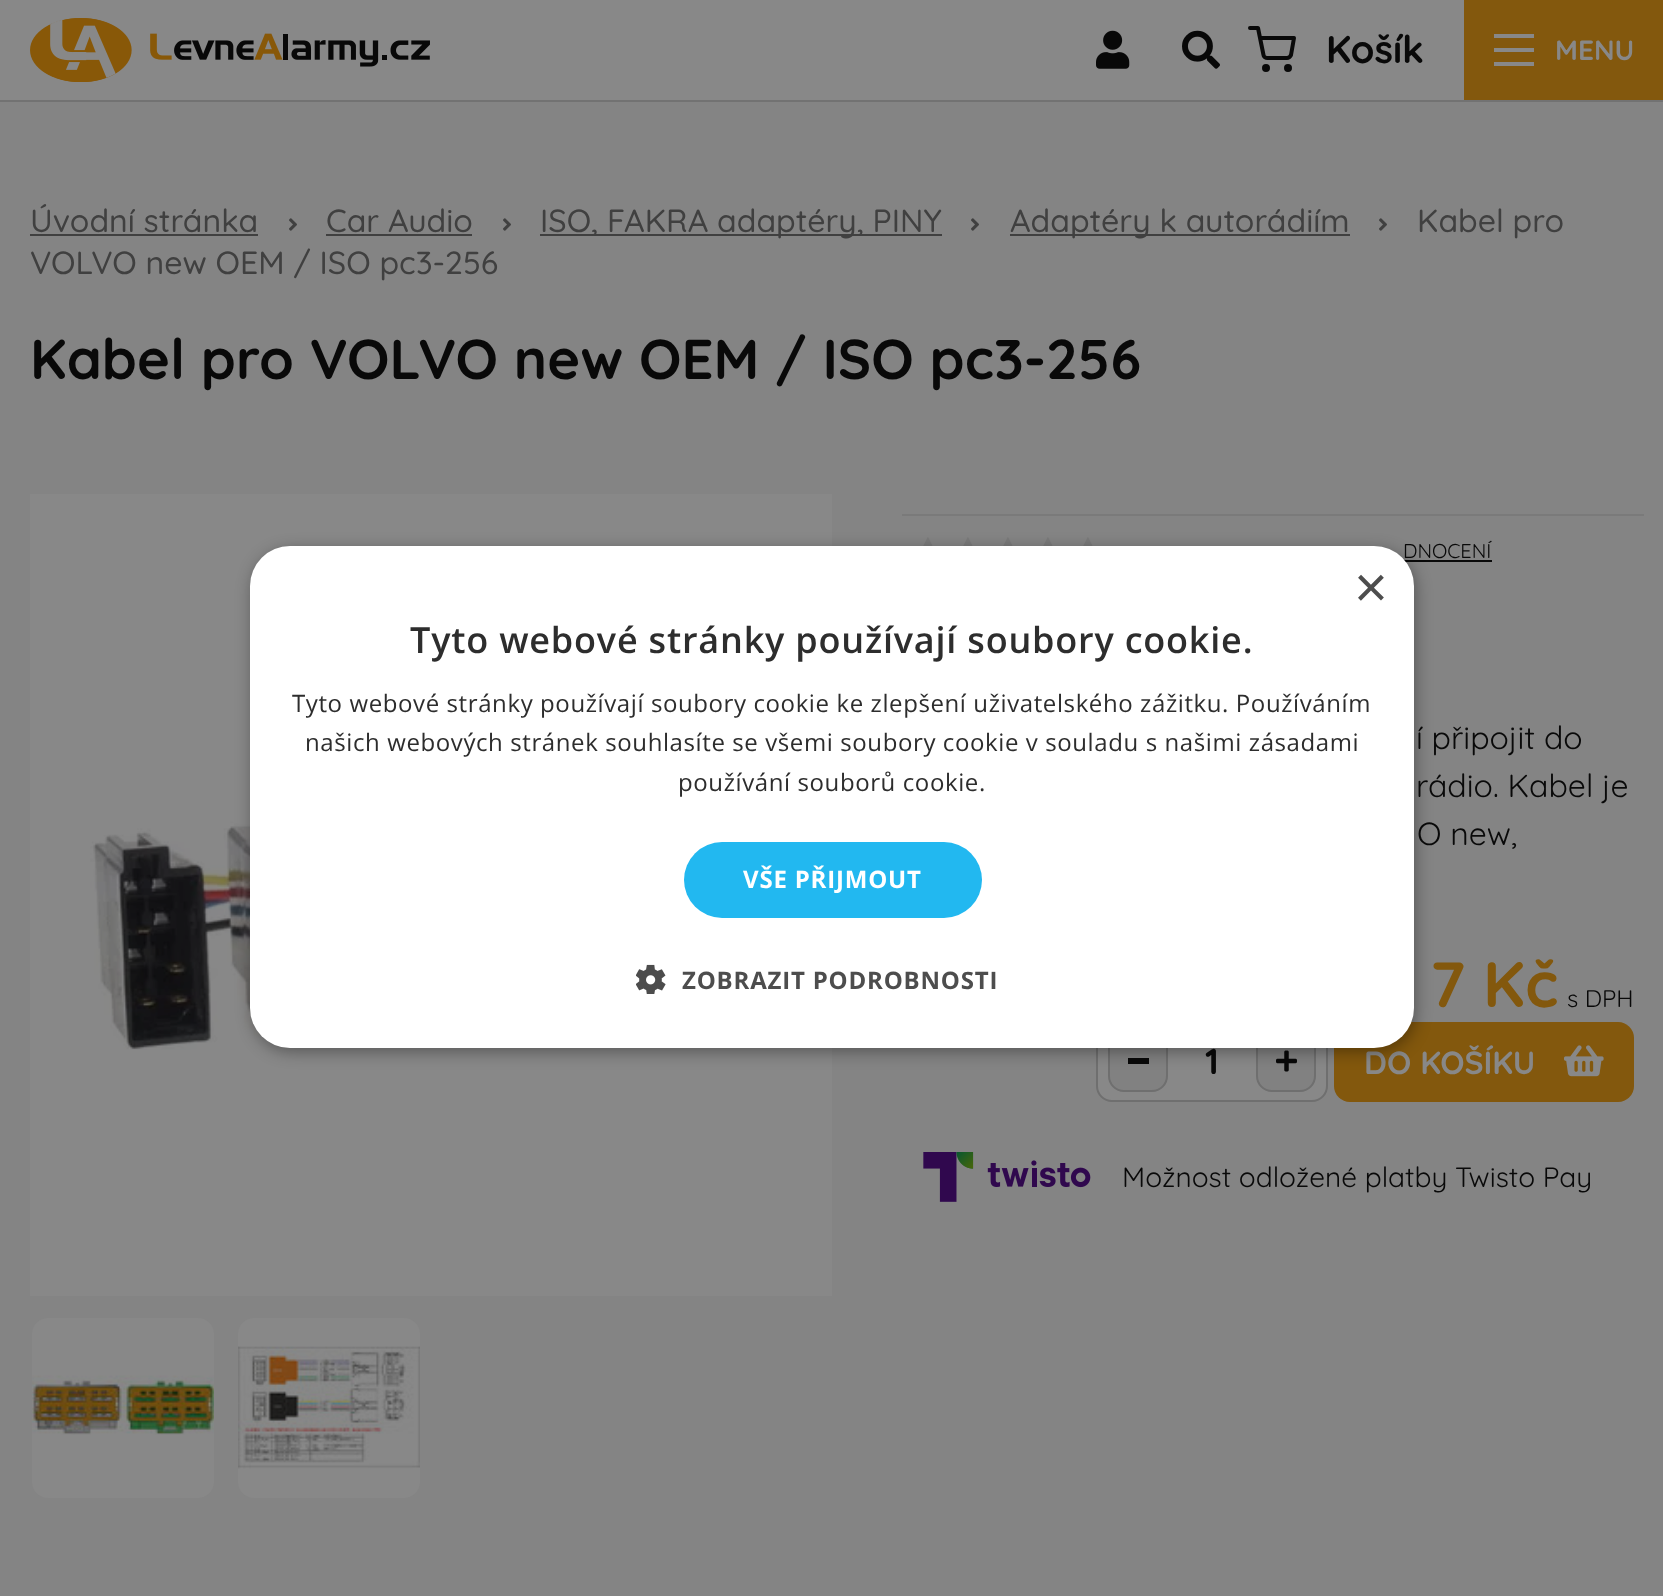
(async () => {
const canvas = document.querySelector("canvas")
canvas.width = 1663
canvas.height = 1596
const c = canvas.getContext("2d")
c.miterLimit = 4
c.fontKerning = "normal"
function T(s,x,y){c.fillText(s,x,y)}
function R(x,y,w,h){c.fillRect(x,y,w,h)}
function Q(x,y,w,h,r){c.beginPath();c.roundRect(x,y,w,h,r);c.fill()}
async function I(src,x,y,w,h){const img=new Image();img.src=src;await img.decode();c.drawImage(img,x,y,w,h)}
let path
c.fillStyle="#848484"
R(0,0,1663,1596)
c.fillStyle="#888"
R(0,0,1464,100)
c.fillStyle="#727272"
R(0,100,1663,2)
await I("1.png",30,18,400,64)
await I("2.png",1096,30,34,39)
await I("3.png",1182,30,38,39)
path = new Path2D("M1250 28h8l5.5 27c0 1.5 2 3 4 3h19.5c1.5 0 3.5-1.5 4-3l3-17h-34")
c.strokeStyle="#090909"
c.lineWidth=4
c.lineCap="round"
c.lineJoin="round"
c.stroke(path)
c.beginPath()
c.arc(1266,68,2,0,7)
c.stroke()
c.beginPath()
c.arc(1288,68,2,0,7)
c.stroke()
c.font="bold 38.5px Quicksand"
c.fillStyle="#090909"
T("Košík",1326,63)
c.fillStyle="#83580d"
R(1464,0,199,100)
c.fillStyle="#888"
R(1494,34,40,4)
R(1494,48,40,4)
R(1494,62,40,4)
c.font="bold 28px Quicksand"
T("MENU",1555,60)
c.font="500 32px Quicksand"
c.fillStyle="#404040"
T("Úvodní stránka",30,232)
R(30,234,228,2)
await I("4.png",289,218,8,13)
T("Car Audio",326,232)
R(326,234,146,2)
await I("4.png",503,218,8,13)
R(540,234,402,2)
T("ISO, FAKRA adaptéry, PINY",540,232)
await I("4.png",971,218,8,13)
R(1010,234,340,2)
T("Adaptéry k autorádiím",1010,232)
await I("4.png",1379,218,8,13)
T("Kabel pro",1417,232)
T("VOLVO new OEM / ISO pc3-256",30,274)
c.font="bold 56px Quicksand"
c.fillStyle="#090909"
T("Kabel pro VOLVO new OEM / ISO pc3-256",30,379)
c.fillStyle="#888"
R(30,494,802,802)
await I("5.png",90,816,689,234)
Q(32,1318,182,180,16)
await I("6.png",32,1375,182,60)
Q(238,1318,182,180,16)
await I("7.png",238,1346,182,123)
c.fillStyle="#7a7a7a"
R(902,514,742,2)
await I("8.png",923,537,10,9)
await I("8.png",963,537,10,9)
await I("8.png",1003,537,10,9)
await I("8.png",1043,537,10,9)
await I("8.png",1083,537,10,9)
c.font="20px Quicksand"
c.fillStyle="#090909"
T("DNOCENÍ",1403,558)
R(1404,560,88,2)
c.font="32px Quicksand"
T("í připojit do",1416,749)
T("rádio. Kabel je",1416,797)
T("O new,",1417,845)
c.font="bold 64px Quicksand"
c.fillStyle="#83580d"
T("7 Kč",1430,1007)
c.font="24px Quicksand"
c.fillStyle="#090909"
T("s DPH",1567,1007)
c.fillStyle="#888"
c.beginPath()
c.roundRect(1097,1023,230,78,15)
c.fill()
c.strokeStyle="#6f6f6f"
c.lineWidth=2
c.lineJoin="miter"
c.stroke()
c.fillStyle="#818181"
c.beginPath()
c.roundRect(1109,1033,58,58,15)
c.fill()
c.stroke()
c.fillStyle="#090909"
R(1128,1058,21,6)
c.font="bold 36px Quicksand"
T("1",1205,1074)
c.fillStyle="#818181"
c.beginPath()
c.roundRect(1257,1033,58,58,15)
c.fill()
c.stroke()
await I("9.png",1276,1050,21,22)
c.fillStyle="#83580d"
Q(1334,1022,300,80,16)
c.font="bold 32px Quicksand"
c.fillStyle="#888"
T("DO KOŠÍKU",1364,1074)
await I("10.png",1564,1045,40,32)
await I("11.png",923,1152,168,50)
c.font="28px Quicksand"
c.fillStyle="#090909"
T("Možnost odložené platby Twisto Pay",1122,1187)
c.fillStyle="#00000059"
c.filter="blur(8px)"
c.beginPath()
c.roundRect(252,550,1164,502,40)
c.fill()
c.filter="none"
c.fillStyle="#fff"
Q(250,546,1164,502,40)
c.font="58px Liberation Sans"
c.fillStyle="#4d4d4d"
T("×",1354,607)
c.letterSpacing="0.8px"
c.font="600 36px Open Sans"
c.fillStyle="#2d2d2d"
T("Tyto webové stránky používají soubory cookie.",410,653)
c.letterSpacing="0.6px"
c.font="24px Open Sans"
T("Tyto webové stránky používají soubory cookie ke zlepšení uživatelského zážitku. Používáním",292,712)
T("našich webových stránek souhlasíte se všemi soubory cookie v souladu s našimi zásadami",305,751)
T("používání souborů cookie.",678,791)
c.fillStyle="#22b8f0"
Q(684,842,298,76,38)
c.letterSpacing="0.8px"
c.font="bold 24px Open Sans"
c.fillStyle="#fff"
T("VŠE PŘIJMOUT",743,888)
await I("12.png",636,964,30,30)
c.fillStyle="#4d4d4d"
T("ZOBRAZIT PODROBNOSTI",682,989)
})()
